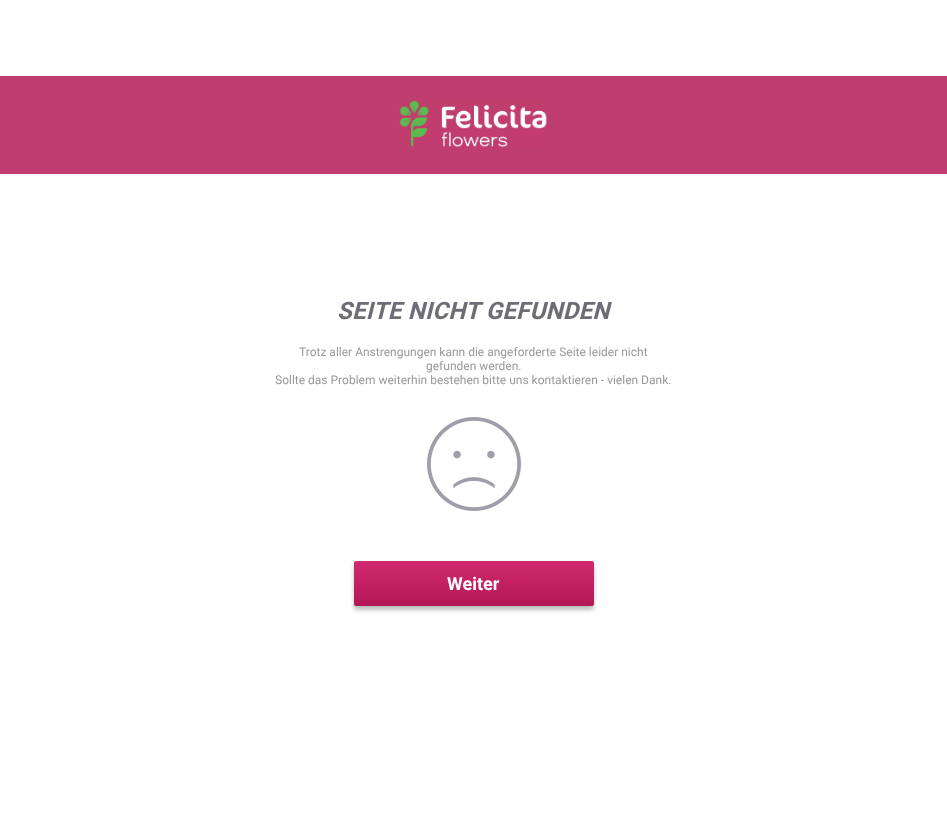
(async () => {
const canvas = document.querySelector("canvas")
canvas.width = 947
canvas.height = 820
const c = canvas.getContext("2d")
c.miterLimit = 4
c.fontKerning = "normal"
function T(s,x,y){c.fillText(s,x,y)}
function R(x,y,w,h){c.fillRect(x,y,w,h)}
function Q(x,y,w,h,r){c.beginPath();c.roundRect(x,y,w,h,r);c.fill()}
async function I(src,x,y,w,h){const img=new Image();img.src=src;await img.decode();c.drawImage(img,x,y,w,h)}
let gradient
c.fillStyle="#fff"
R(0,0,947,820)
c.fillStyle="#c03e6f"
R(0,76,947,98)
await I("1.png",399,100,148,47)
c.letterSpacing="0.25px"
c.font="italic bold 24px Roboto"
c.fillStyle="#6d6d76"
T("SEITE NICHT GEFUNDEN",337,319)
c.letterSpacing="0px"
c.font="12px Roboto"
c.fillStyle="#999"
T("Trotz aller Anstrengungen kann die angeforderte Seite leider nicht",299,356)
T("gefunden werden.",426,370)
T("Sollte das Problem weiterhin bestehen bitte uns kontaktieren - vielen Dank.",275,384)
await I("2.png",427,417,94,94)
c.fillStyle="#00000040"
c.filter="blur(2px)"
c.beginPath()
c.roundRect(354,565,240,45,2)
c.fill()
c.filter="none"
gradient = c.createLinearGradient(474,561,474,606)
gradient.addColorStop(0,"#d12a6f")
gradient.addColorStop(1,"#b31656")
c.fillStyle = gradient
Q(354,561,240,45,2)
c.font="bold 18px Roboto"
c.fillStyle="#fff"
T("Weiter",447,590)
})()
